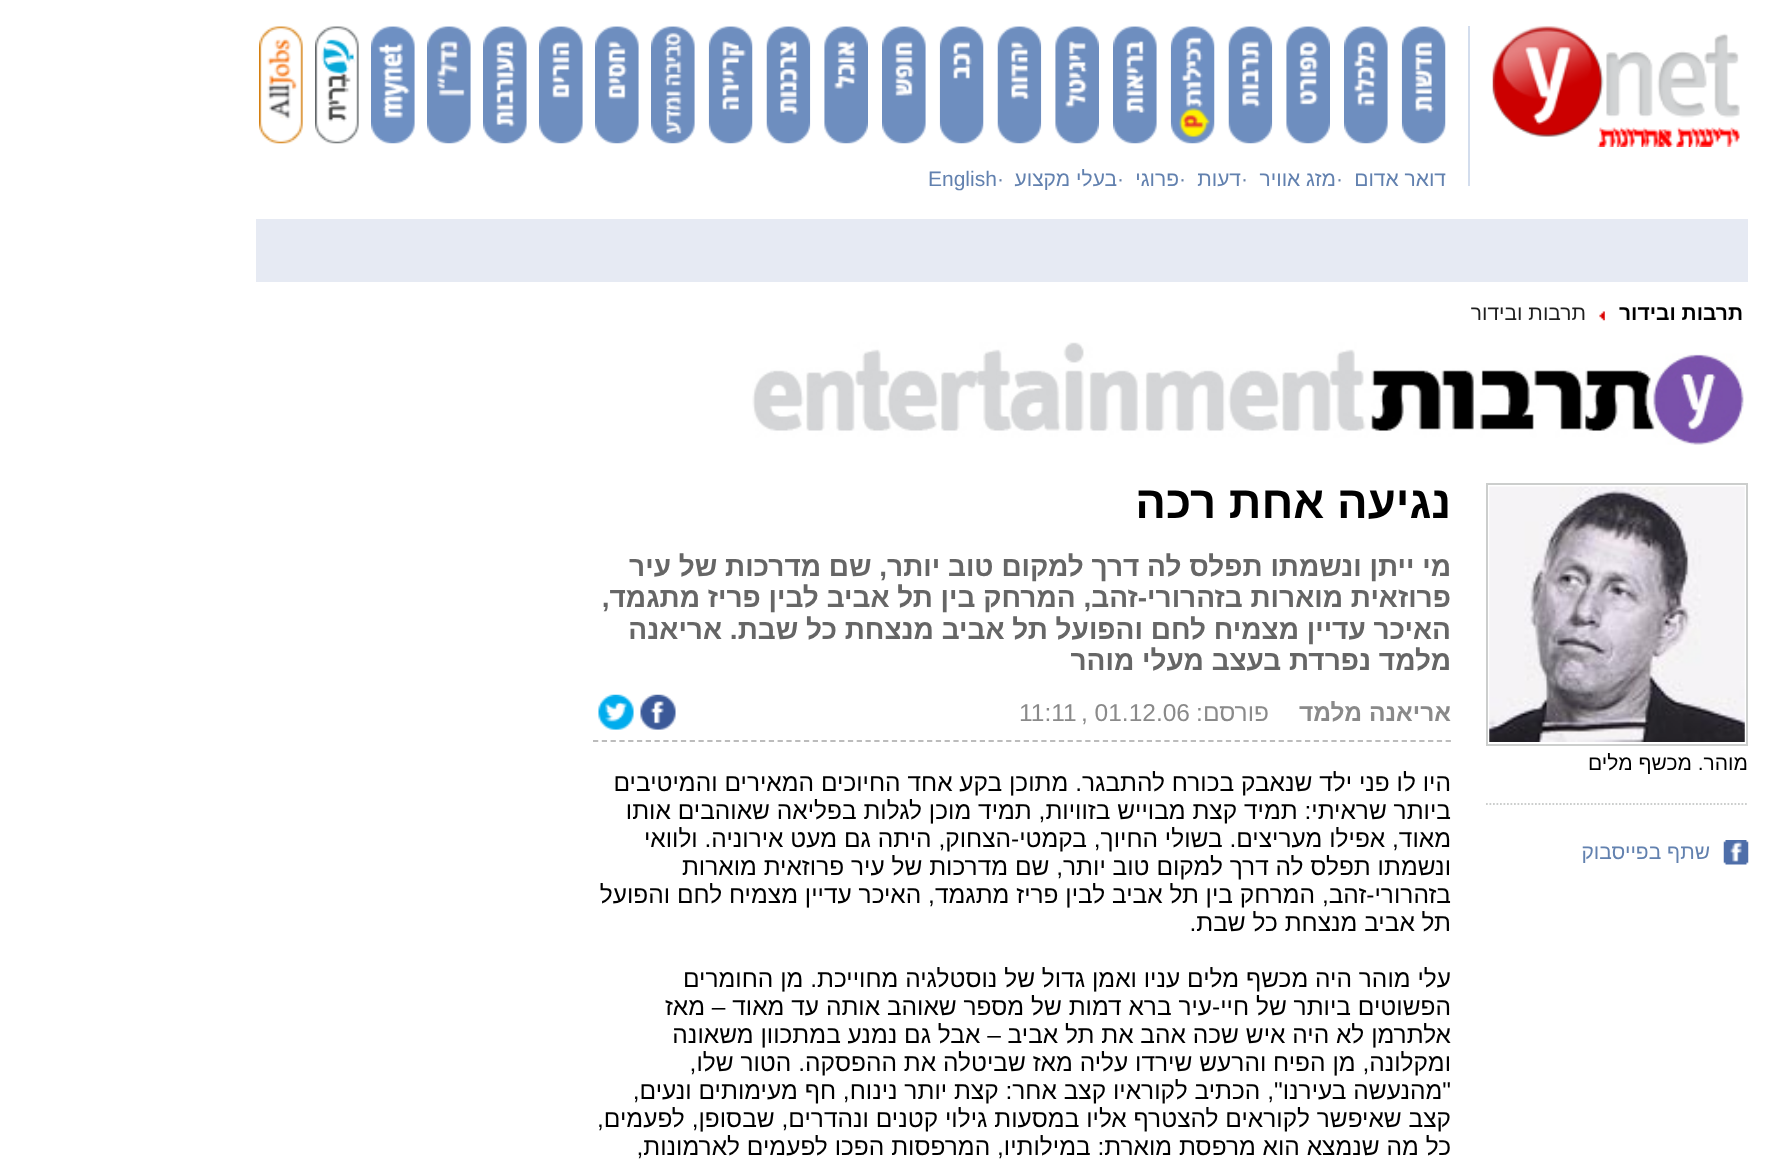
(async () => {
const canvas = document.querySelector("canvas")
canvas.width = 1780
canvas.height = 1173
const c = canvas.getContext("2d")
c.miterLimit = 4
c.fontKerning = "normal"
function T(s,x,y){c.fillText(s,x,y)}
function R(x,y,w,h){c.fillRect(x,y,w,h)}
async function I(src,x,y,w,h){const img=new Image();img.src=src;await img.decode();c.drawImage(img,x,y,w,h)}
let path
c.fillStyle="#fff"
R(0,0,1780,1173)
await I("1.png",1492,26,248,121)
c.fillStyle="#d3dded"
R(1468,26,2,160)
await I("2.png",1401,26,45,118)
await I("3.png",1344,26,44,118)
await I("4.png",1286,26,44,118)
await I("5.png",1228,26,45,118)
await I("6.png",1170,26,45,118)
await I("7.png",1113,26,44,118)
await I("8.png",1055,26,44,118)
await I("9.png",997,26,45,118)
await I("10.png",939,26,45,118)
await I("11.png",882,26,44,118)
await I("12.png",824,26,44,118)
await I("13.png",766,26,45,118)
await I("14.png",708,26,45,118)
await I("15.png",651,26,44,118)
await I("16.png",595,26,44,118)
await I("17.png",539,26,44,118)
await I("18.png",483,26,44,118)
await I("19.png",427,26,44,118)
await I("20.png",371,26,44,118)
await I("21.png",315,26,44,118)
await I("22.png",259,26,44,118)
c.direction="rtl"
c.font="21px Liberation Sans"
c.fillStyle="#6281af"
T("דואר אדום",1446,186)
c.direction="ltr"
c.fillStyle="#6882a7"
T("·",1336,186)
c.direction="rtl"
c.fillStyle="#6281af"
T("מזג אוויר",1336,186)
c.direction="ltr"
c.fillStyle="#6882a7"
T("·",1241,186)
c.direction="rtl"
c.fillStyle="#6281af"
T("דעות",1241,186)
c.direction="ltr"
c.fillStyle="#6882a7"
T("·",1179,186)
c.direction="rtl"
c.fillStyle="#6281af"
T("פרוגי",1179,186)
c.direction="ltr"
c.fillStyle="#6882a7"
T("·",1117,186)
c.direction="rtl"
c.fillStyle="#6281af"
T("בעלי מקצוע",1117,186)
c.direction="ltr"
c.fillStyle="#6882a7"
T("·",997,186)
c.fillStyle="#6281af"
T("English",928,186)
c.fillStyle="#e6eaf3"
R(256,219,1492,63)
c.direction="rtl"
c.font="bold 21px Liberation Sans"
c.fillStyle="#000"
T("תרבות ובידור",1743,320)
await I("23.png",1599,311,6,10)
c.font="21px Liberation Sans"
c.fillStyle="#1f1f1f"
T("תרבות ובידור",1586,320)
await I("24.png",752,342,992,103)
c.strokeStyle="#cccecd"
c.lineWidth=2
c.strokeRect(1487,484,260,261)
await I("25.png",1489,486,256,256)
c.fillStyle="#000"
T("מוהר. מכשף מלים",1748,770)
path = new Path2D("M1486 804h262")
c.lineWidth=1.8
c.setLineDash([1.75,1.75])
c.stroke(path)
await I("26.png",1723,840,26,25)
c.fillStyle="#6281af"
T("שתף בפייסבוק",1710,859)
c.font="bold 45.5px Liberation Sans"
c.fillStyle="#000"
T("נגיעה אחת רכה",1451,518)
c.font="bold 28px Liberation Sans"
c.fillStyle="#666"
T("מי ייתן ונשמתו תפלס לה דרך למקום טוב יותר, שם מדרכות של עיר",1451,576)
T("פרוזאית מוארות בזהרורי-זהב, המרחק בין תל אביב לבין פריז מתגמד,",1451,607)
T("האיכר עדיין מצמיח לחם והפועל תל אביב מנצחת כל שבת. אריאנה",1451,639)
T("מלמד נפרדת בעצב מעלי מוהר",1451,670)
c.font="bold 24.5px Liberation Sans"
c.fillStyle="#8a8a8a"
T("אריאנה מלמד",1451,721)
c.font="24.5px Liberation Sans"
T("פורסם:",1269,721)
c.direction="ltr"
T(", 01.12.06",1081,721)
T("11:11",1019,721)
await I("27.png",640,694,36,36)
await I("28.png",598,694,36,36)
path = new Path2D("M593 741h858")
c.strokeStyle="#bcbcbc"
c.setLineDash([5.25,3.54])
c.stroke(path)
c.direction="rtl"
c.fillStyle="#000"
T("היו לו פני ילד שנאבק בכורח להתבגר. מתוכן בקע אחד החיוכים המאירים והמיטיבים",1451,791)
T("ביותר שראיתי: תמיד קצת מבוייש בזוויות, תמיד מוכן לגלות בפליאה שאוהבים אותו",1451,819)
T("מאוד, אפילו מעריצים. בשולי החיוך, בקמטי-הצחוק, היתה גם מעט אירוניה. ולוואי",1451,847)
T("ונשמתו תפלס לה דרך למקום טוב יותר, שם מדרכות של עיר פרוזאית מוארות",1451,875)
T("בזהרורי-זהב, המרחק בין תל אביב לבין פריז מתגמד, האיכר עדיין מצמיח לחם והפועל",1451,903)
T("תל אביב מנצחת כל שבת.",1451,931)
T("עלי מוהר היה מכשף מלים עניו ואמן גדול של נוסטלגיה מחוייכת. מן החומרים",1451,987)
T("הפשוטים ביותר של חיי-עיר ברא דמות של מספר שאוהב אותה עד מאוד – מאז",1451,1015)
T("אלתרמן לא היה איש שכה אהב את תל אביב – אבל גם נמנע במתכוון משאונה",1451,1043)
T("ומקלונה, מן הפיח והרעש שירדו עליה מאז שביטלה את ההפסקה. הטור שלו,",1451,1071)
T("\"מהנעשה בעירנו\", הכתיב לקוראיו קצב אחר: קצת יותר נינוח, חף מעימותים ונעים,",1451,1099)
T("קצב שאיפשר לקוראים להצטרף אליו במסעות גילוי קטנים ונהדרים, שבסופן, לפעמים,",1451,1127)
T("כל מה שנמצא הוא מרפסת מוארת: במילותיו, המרפסות הפכו לפעמים לארמונות,",1451,1155)
})()
